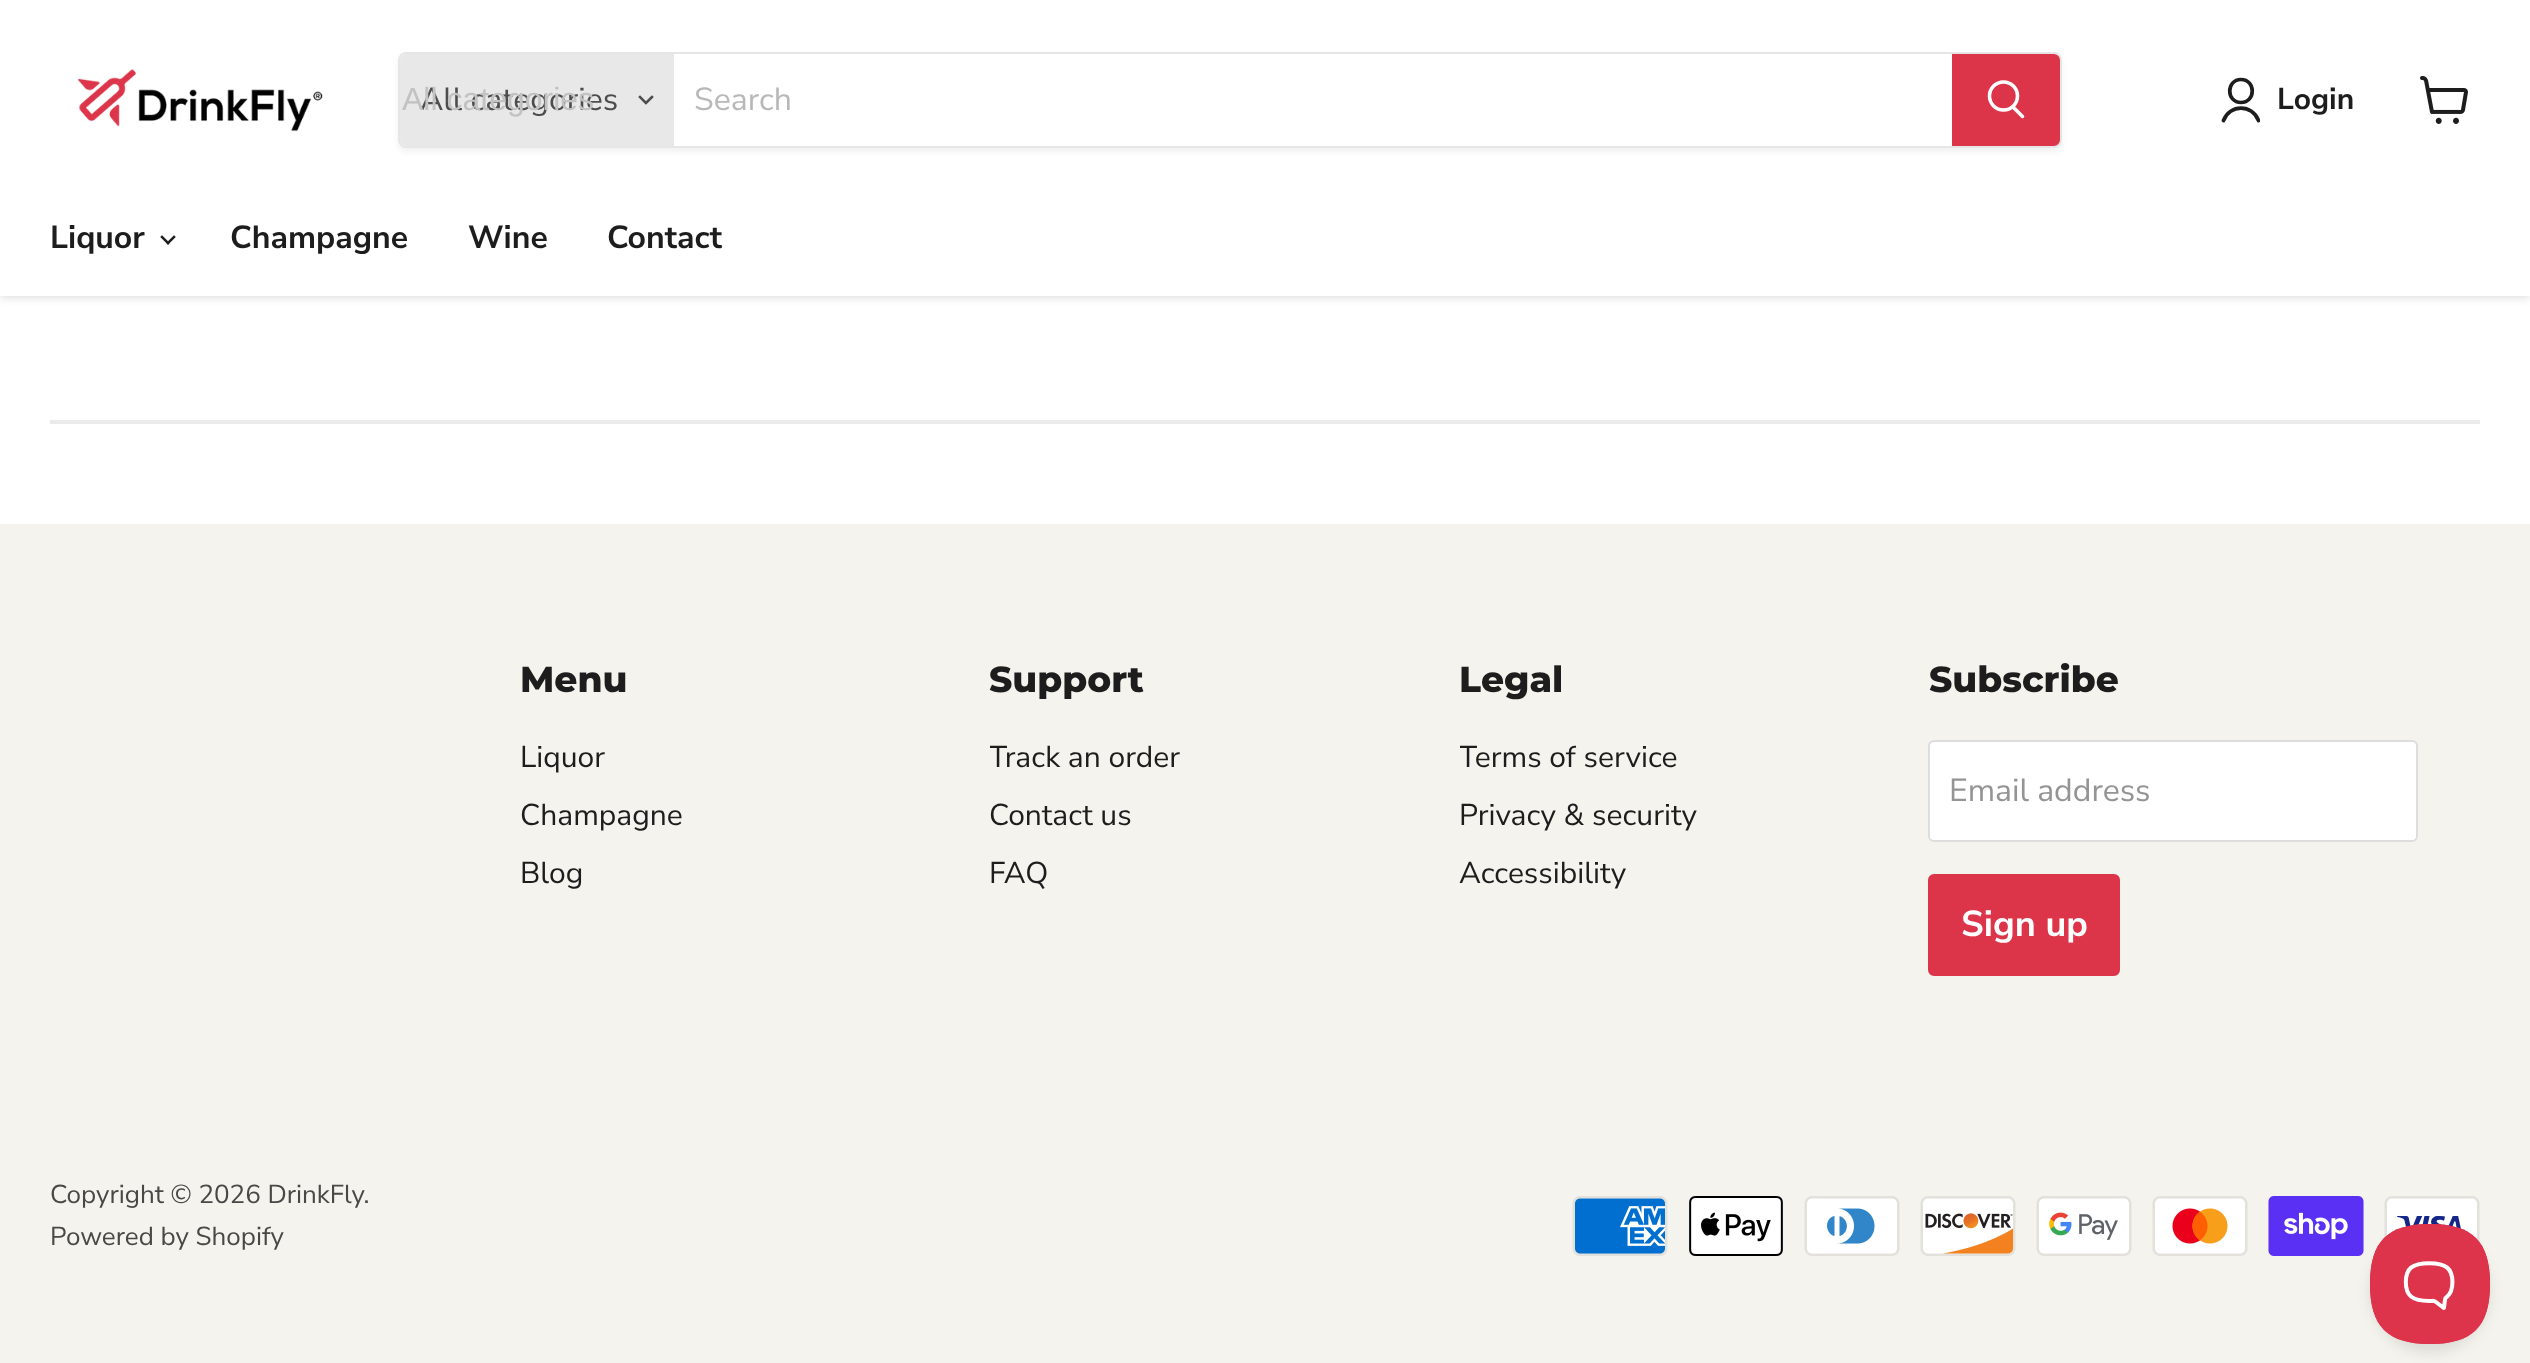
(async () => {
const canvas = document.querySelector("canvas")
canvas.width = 2530
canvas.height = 1363
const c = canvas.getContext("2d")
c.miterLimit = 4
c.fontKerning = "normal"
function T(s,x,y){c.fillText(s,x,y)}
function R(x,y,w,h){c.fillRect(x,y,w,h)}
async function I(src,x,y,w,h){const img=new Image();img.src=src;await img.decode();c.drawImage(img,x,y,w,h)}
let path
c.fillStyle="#fff"
R(0,0,2530,1363)
c.fillStyle="#80808040"
c.filter="blur(4px)"
c.beginPath()
c.rect(0,2,2530,296)
c.fill()
c.filter="none"
c.fillStyle="#fff"
R(0,0,2530,296)
await I("1.png",77,69,246,63)
c.save()
path = new Path2D("M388 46h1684v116h-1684zm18 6h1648c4.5 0 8 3.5 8 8v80c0 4.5-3.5 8-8 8h-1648c-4.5 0-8-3.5-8-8v-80c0-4.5 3.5-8 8-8z")
c.clip(path,"evenodd")
c.fillStyle="#8080801c"
c.filter="blur(3px)"
c.beginPath()
c.roundRect(398,56,1664,96,8)
c.fill()
c.filter="none"
c.restore()
c.beginPath()
c.roundRect(399,53,1662,94,7)
c.strokeStyle="#80808033"
c.lineWidth=2
c.stroke()
c.fillStyle="#e8e8e8"
c.beginPath()
c.roundRect(400,54,274,92,[6,0,0,6])
c.fill()
c.font="32px Nunito Sans"
c.fillStyle="#4d4d4d"
T("All categories",420,110)
c.font="32px Liberation Sans"
c.fillStyle="#c2c2c2"
T("All categories",402,110)
path = new Path2D("M646 103l6-6m-6 6l-6-6")
c.strokeStyle="#4d4d4d"
c.lineWidth=2.5
c.lineCap="square"
c.stroke(path)
c.font="32px Nunito Sans"
c.fillStyle="#b8b8b8"
T("Search",694,110)
c.fillStyle="#dc354a"
c.beginPath()
c.roundRect(1953,55,106,90,[0,5,5,0])
c.fill()
c.strokeStyle="#dc354a"
c.lineWidth=2
c.stroke()
path = new Path2D("M2022.5 116.5l-9.5-9.5")
c.strokeStyle="#fff"
c.lineWidth=3.5
c.lineCap="round"
c.stroke(path)
c.beginPath()
c.arc(2003.5,96,14,0,7)
c.stroke()
path = new Path2D("M2241 102.5c15 0 15-23 0-23c-15 0-15 23 0 23z")
c.strokeStyle="#1d1d1d"
c.lineWidth=3.7
c.lineJoin="round"
c.stroke(path)
c.save()
c.beginPath()
c.rect(2220,76,40,48)
c.clip()
path = new Path2D("M2258.5 120.5c-6-16.5-29-16.5-35 0")
c.stroke(path)
c.restore()
c.font="bold 30px Nunito Sans"
c.fillStyle="#1d1d1d"
T("Login",2277,109)
await I("2.png",2420,76,48,48)
c.font="bold 32px Nunito Sans"
T("Liquor",50,248)
await I("3.png",160,235,16,10)
T("Champagne",230,248)
T("Wine",468,248)
T("Contact",607,248)
c.fillStyle="#ebebeb"
R(50,420,2430,4)
c.fillStyle="#f5f3ed"
R(0,524,2530,839)
c.font="800 36px Montserrat"
c.fillStyle="#1d1d1d"
T("Menu",520,692)
c.font="30px Nunito Sans"
T("Liquor",520,767)
T("Champagne",520,825)
T("Blog",520,883)
c.font="800 36px Montserrat"
T("Support",989,692)
c.save()
c.beginPath()
c.rect(990,732,390,164)
c.clip()
c.font="30px Nunito Sans"
T("Track an order",989,767)
c.restore()
c.font="30px Nunito Sans"
T("Contact us",989,825)
T("FAQ",989,883)
c.font="800 36px Montserrat"
T("Legal",1459,692)
c.save()
c.beginPath()
c.rect(1460,732,388,164)
c.clip()
c.font="30px Nunito Sans"
T("Terms of service",1459,767)
c.restore()
c.font="30px Nunito Sans"
T("Privacy & security",1459,825)
T("Accessibility",1459,883)
c.font="800 36px Montserrat"
T("Subscribe",1929,692)
c.fillStyle="#fff"
c.beginPath()
c.roundRect(1929,741,488,100,5)
c.fill()
c.strokeStyle="#ddd"
c.lineWidth=2
c.lineJoin="miter"
c.stroke()
c.font="32px Nunito Sans"
c.fillStyle="#949494"
T("Email address",1949,801)
c.fillStyle="#dc354a"
c.beginPath()
c.roundRect(1929,875,190,100,5)
c.fill()
c.strokeStyle="#dc354a"
c.stroke()
c.font="bold 36px Nunito Sans"
c.fillStyle="#fff"
T("Sign up",1961,936)
c.font="26px Nunito Sans"
c.fillStyle="#484847"
T("Copyright © 2026 DrinkFly.",50,1203)
T("Powered by Shopify",50,1245)
await I("4.png",1572,1196,96,60)
await I("5.png",1689,1196,94,60)
await I("6.png",1804,1196,96,60)
await I("7.png",1920,1196,96,60)
await I("8.png",2036,1196,96,60)
await I("9.png",2152,1196,96,60)
await I("10.png",2268,1196,96,60)
await I("11.png",2384,1196,96,47)
c.fillStyle="#0000001a"
c.filter="blur(7px)"
c.beginPath()
c.roundRect(2370,1232,120,120,60)
c.fill()
c.filter="none"
await I("12.png",2370,1224,120,120)
})()
